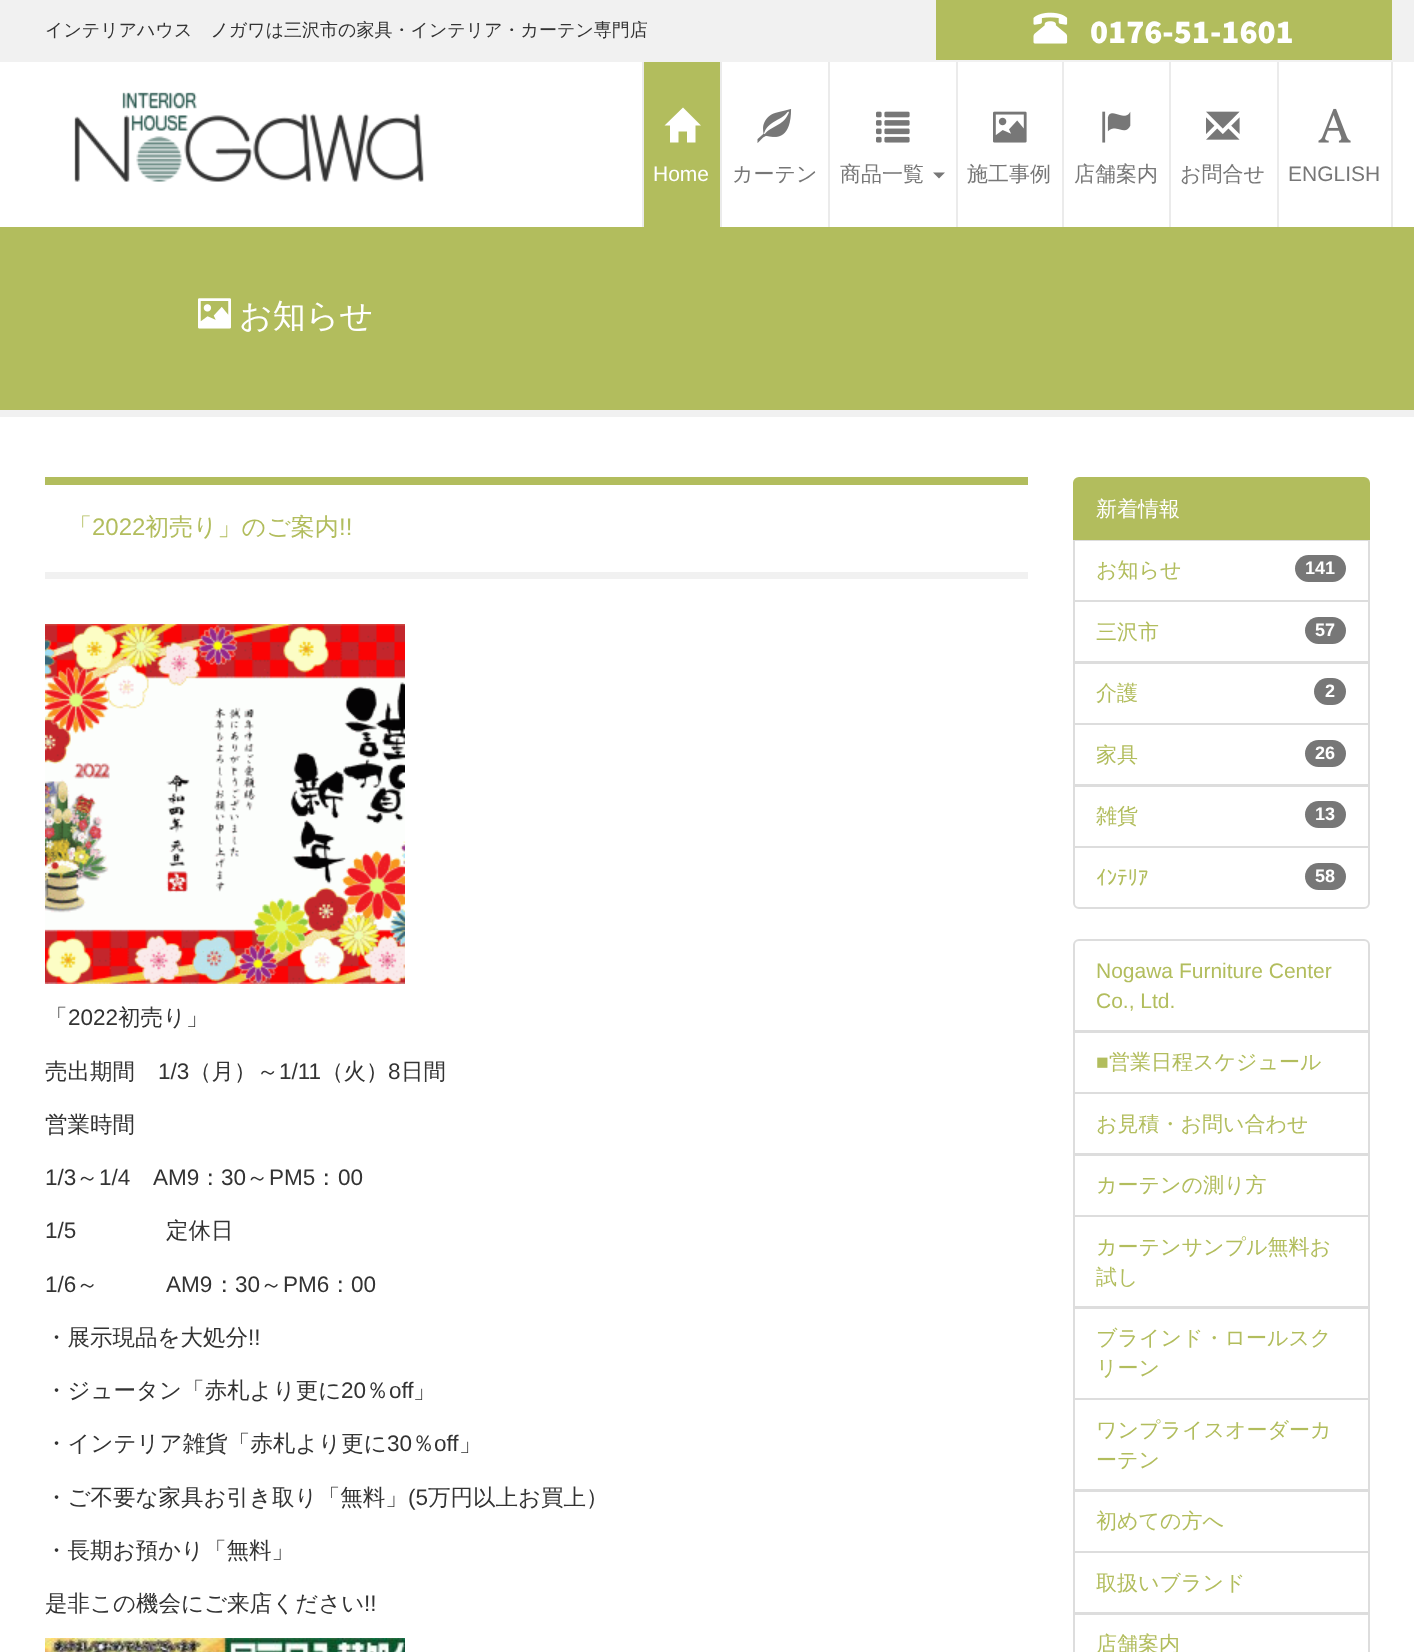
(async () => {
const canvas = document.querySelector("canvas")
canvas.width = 1414
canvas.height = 1652
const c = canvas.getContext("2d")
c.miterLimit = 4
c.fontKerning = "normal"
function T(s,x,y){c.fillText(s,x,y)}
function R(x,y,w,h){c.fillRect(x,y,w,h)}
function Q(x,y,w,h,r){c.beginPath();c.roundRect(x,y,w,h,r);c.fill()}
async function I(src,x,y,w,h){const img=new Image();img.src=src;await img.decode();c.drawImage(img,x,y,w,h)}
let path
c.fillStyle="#fff"
R(0,0,1414,1652)
c.fillStyle="#f1f1f1"
R(0,0,1414,62)
c.font="500 18px WenQuanYi Zen Hei"
c.fillStyle="#333"
T("インテリアハウス　ノガワは三沢市の家具・インテリア・カーテン専門店",45,36)
c.fillStyle="#b2bd5d"
R(936,0,456,60)
await I("1.png",1033,12,35,32)
c.font="900 33.5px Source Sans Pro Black"
c.fillStyle="#fff"
T("0176-51-1601",1090,43)
c.fillStyle="#b2bd5d"
R(0,227,1414,183)
await I("2.png",74,92,350,90)
c.fillStyle="#ebebeb"
R(642,62,2,165)
c.fillStyle="#b2bd5d"
R(644,62,76,165)
c.fillStyle="#fff"
path = new Path2D("M664.5 125.5l18.5-18l18 18h-5.5v17h-8.5v-11h-8.5v11h-8.5v-17z")
c.fill(path)
c.font="21px Liberation Sans"
T("Home",653,181)
c.fillStyle="#ebebeb"
R(720,62,2,165)
await I("3.png",757,109,35,34)
c.font="500 21px WenQuanYi Zen Hei"
c.fillStyle="#777"
T("カーテン",732,181)
c.fillStyle="#ebebeb"
R(828,62,2,165)
await I("4.png",876,111,34,32)
c.fillStyle="#777"
T("商品一覧",840,181)
path = new Path2D("M933 172.5h12l-6 6z")
c.fill(path)
c.fillStyle="#ebebeb"
R(956,62,2,165)
await I("5.png",993,111,34,32)
c.fillStyle="#777"
T("施工事例",967,181)
c.fillStyle="#ebebeb"
R(1062,62,2,165)
await I("6.png",1102,111,29,32)
c.fillStyle="#777"
T("店舗案内",1074,181)
c.fillStyle="#ebebeb"
R(1169,62,2,165)
await I("7.png",1206,111,34,29)
c.fillStyle="#777"
T("お問合せ",1180,181)
c.fillStyle="#ebebeb"
R(1391,62,2,165)
R(1277,62,2,165)
await I("8.png",1318,108,33,35)
c.font="21px Liberation Sans"
c.fillStyle="#777"
T("ENGLISH",1288,181)
c.fillStyle="#f1f1f1"
R(0,410,1414,7)
await I("9.png",198,298,33,31)
c.font="500 33px WenQuanYi Zen Hei"
c.fillStyle="#fff"
T("お知らせ",239,327)
c.fillStyle="#b2bd5d"
R(45,477,983,8)
c.fillStyle="#f1f1f1"
R(45,572,983,7)
c.font="500 24px WenQuanYi Zen Hei"
c.fillStyle="#b2bd5d"
T("「",68,535)
c.font="24px Liberation Sans"
T("2022",92,535)
c.font="500 24px WenQuanYi Zen Hei"
T("初売り」のご案内",145,535)
c.font="24px Liberation Sans"
T("!!",339,535)
await I("10.png",45,624,360,360)
c.font="500 22.5px WenQuanYi Zen Hei"
c.fillStyle="#333"
T("「",45,1025)
c.font="22.5px Liberation Sans"
T("2022",68,1025)
c.font="500 22.5px WenQuanYi Zen Hei"
T("初売り」",118,1025)
T("売出期間",45,1079)
c.font="22.5px Liberation Sans"
T("1/3",158,1079)
c.font="500 22.5px WenQuanYi Zen Hei"
T("（月）～",189,1079)
c.font="22.5px Liberation Sans"
T("1/11",279,1079)
c.font="500 22.5px WenQuanYi Zen Hei"
T("（火）",321,1079)
c.font="22.5px Liberation Sans"
T("8",388,1079)
c.font="500 22.5px WenQuanYi Zen Hei"
T("日間",401,1079)
T("営業時間",45,1132)
c.font="22.5px Liberation Sans"
T("1/3",45,1185)
c.font="500 22.5px WenQuanYi Zen Hei"
T("～",76,1185)
c.font="22.5px Liberation Sans"
T("1/4",99,1185)
T("AM9",153,1185)
c.font="500 22.5px WenQuanYi Zen Hei"
T("：",199,1185)
c.font="22.5px Liberation Sans"
T("30",221,1185)
c.font="500 22.5px WenQuanYi Zen Hei"
T("～",246,1185)
c.font="22.5px Liberation Sans"
T("PM5",269,1185)
c.font="500 22.5px WenQuanYi Zen Hei"
T("：",315,1185)
c.font="22.5px Liberation Sans"
T("00",338,1185)
T("1/5",45,1238)
c.font="500 22.5px WenQuanYi Zen Hei"
T("定休日",166,1238)
c.font="22.5px Liberation Sans"
T("1/6",45,1292)
c.font="500 22.5px WenQuanYi Zen Hei"
T("～",76,1292)
c.font="22.5px Liberation Sans"
T("AM9",166,1292)
c.font="500 22.5px WenQuanYi Zen Hei"
T("：",213,1292)
c.font="22.5px Liberation Sans"
T("30",235,1292)
c.font="500 22.5px WenQuanYi Zen Hei"
T("～",260,1292)
c.font="22.5px Liberation Sans"
T("PM6",283,1292)
c.font="500 22.5px WenQuanYi Zen Hei"
T("：",329,1292)
c.font="22.5px Liberation Sans"
T("00",351,1292)
c.font="500 22.5px WenQuanYi Zen Hei"
T("・展示現品を大処分",45,1345)
c.font="22.5px Liberation Sans"
T("!!",248,1345)
c.font="500 22.5px WenQuanYi Zen Hei"
T("・ジュータン「赤札より更に",45,1398)
c.font="22.5px Liberation Sans"
T("20",341,1398)
c.font="500 22.5px WenQuanYi Zen Hei"
T("％",366,1398)
c.font="22.5px Liberation Sans"
T("off",389,1398)
c.font="500 22.5px WenQuanYi Zen Hei"
T("」",413,1398)
T("・インテリア雑貨「赤札より更に",45,1451)
c.font="22.5px Liberation Sans"
T("30",387,1451)
c.font="500 22.5px WenQuanYi Zen Hei"
T("％",412,1451)
c.font="22.5px Liberation Sans"
T("off",434,1451)
c.font="500 22.5px WenQuanYi Zen Hei"
T("」",459,1451)
T("・ご不要な家具お引き取り「無料」",45,1505)
c.font="22.5px Liberation Sans"
T("(5",408,1505)
c.font="500 22.5px WenQuanYi Zen Hei"
T("万円以上お買上）",428,1505)
T("・長期お預かり「無料」",45,1558)
T("是非この機会にご来店ください",45,1611)
c.font="22.5px Liberation Sans"
T("!!",364,1611)
await I("11.png",45,1638,360,14)
c.strokeStyle="#ddd"
c.lineWidth=2
c.strokeRect(1074,540,295,61)
c.fillStyle="#b2bd5d"
c.beginPath()
c.roundRect(1074,478,295,61,[5,5,0,0])
c.fill()
c.strokeStyle="#b2bd5d"
c.stroke()
c.font="500 21px WenQuanYi Zen Hei"
c.fillStyle="#fff"
T("新着情報",1096,516)
c.fillStyle="#b2bd5d"
T("お知らせ",1096,577)
c.fillStyle="#777"
Q(1295,555,51,27,13.5)
c.font="bold 18px Liberation Sans"
c.fillStyle="#fff"
T("141",1305,574)
c.strokeStyle="#ddd"
c.strokeRect(1074,601,295,61)
c.font="500 21px WenQuanYi Zen Hei"
c.fillStyle="#b2bd5d"
T("三沢市",1096,639)
c.fillStyle="#777"
Q(1305,617,41,27,13.5)
c.font="bold 18px Liberation Sans"
c.fillStyle="#fff"
T("57",1315,636)
c.strokeRect(1074,663,295,61)
c.font="500 21px WenQuanYi Zen Hei"
c.fillStyle="#b2bd5d"
T("介護",1096,700)
c.fillStyle="#777"
Q(1314,678,32,27,13.5)
c.font="bold 18px Liberation Sans"
c.fillStyle="#fff"
T("2",1325,697)
c.strokeRect(1074,724,295,61)
c.font="500 21px WenQuanYi Zen Hei"
c.fillStyle="#b2bd5d"
T("家具",1096,762)
c.fillStyle="#777"
Q(1305,740,41,27,13.5)
c.font="bold 18px Liberation Sans"
c.fillStyle="#fff"
T("26",1315,759)
c.strokeRect(1074,786,295,61)
c.font="500 21px WenQuanYi Zen Hei"
c.fillStyle="#b2bd5d"
T("雑貨",1096,823)
c.fillStyle="#777"
Q(1305,801,41,27,13.5)
c.font="bold 18px Liberation Sans"
c.fillStyle="#fff"
T("13",1315,820)
c.beginPath()
c.roundRect(1074,847,295,61,[0,0,5,5])
c.fill()
c.stroke()
c.font="21px IPAPGothic"
c.fillStyle="#b2bd5d"
T("ｲﾝﾃﾘｱ",1096,885)
c.fillStyle="#777"
Q(1305,863,41,27,13.5)
c.font="bold 18px Liberation Sans"
c.fillStyle="#fff"
T("58",1315,882)
c.beginPath()
c.roundRect(1074,940,295,91,[5,5,0,0])
c.stroke()
c.font="21px Liberation Sans"
c.fillStyle="#b2bd5d"
T("Nogawa Furniture Center",1096,978)
T("Co., Ltd.",1096,1008)
c.strokeRect(1074,1032,295,61)
T("■",1096,1069)
c.font="500 21px WenQuanYi Zen Hei"
T("営業日程スケジュール",1109,1069)
c.strokeRect(1074,1093,295,61)
T("お見積・お問い合わせ",1096,1131)
c.strokeRect(1074,1155,295,61)
T("カーテンの測り方",1096,1192)
c.strokeRect(1074,1216,295,91)
T("カーテンサンプル無料お",1096,1254)
T("試し",1096,1284)
c.strokeRect(1074,1308,295,91)
T("ブラインド・ロールスク",1096,1345)
T("リーン",1096,1375)
c.strokeRect(1074,1399,295,91)
T("ワンプライスオーダーカ",1096,1437)
T("ーテン",1096,1467)
c.strokeRect(1074,1491,295,61)
T("初めての方へ",1096,1528)
c.strokeRect(1074,1552,295,61)
T("取扱いブランド",1096,1590)
c.strokeRect(1074,1614,295,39)
T("店舗案内",1096,1651)
})()
